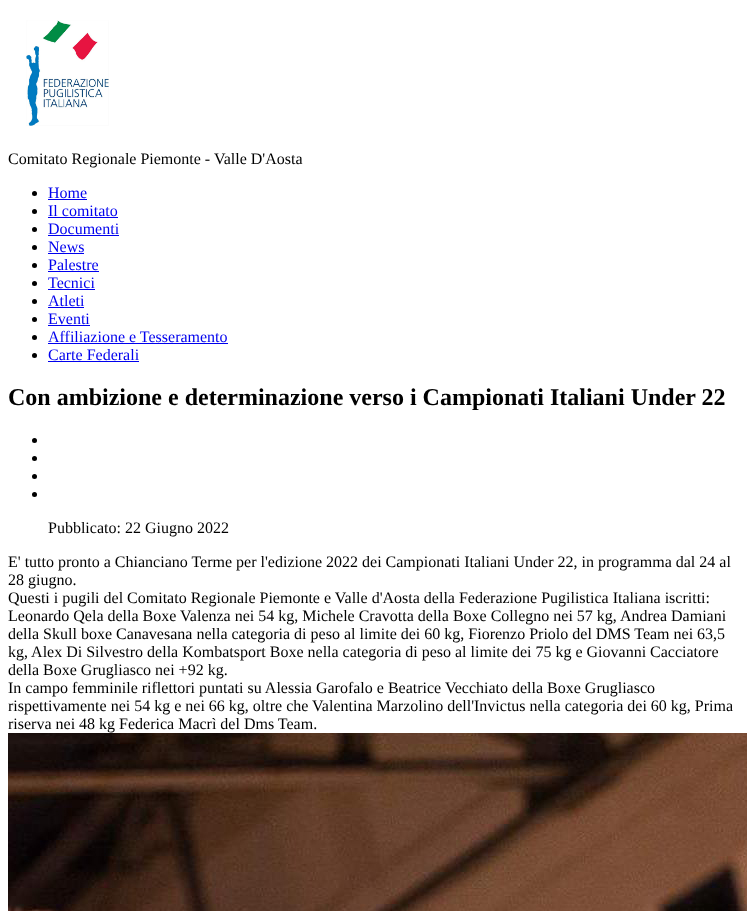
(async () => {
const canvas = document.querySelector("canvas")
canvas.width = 747
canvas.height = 911
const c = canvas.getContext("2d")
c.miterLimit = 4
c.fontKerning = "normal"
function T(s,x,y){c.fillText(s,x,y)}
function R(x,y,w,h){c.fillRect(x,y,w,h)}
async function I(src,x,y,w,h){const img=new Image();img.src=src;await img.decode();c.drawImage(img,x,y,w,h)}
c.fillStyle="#fff"
R(0,0,747,911)
await I("1.png",26,20,83,106)
c.font="16px Liberation Serif"
c.fillStyle="#000"
T("Comitato Regionale Piemonte - Valle D'Aosta",8,164)
c.beginPath()
c.arc(34.5,193.5,2.5,0,7)
c.fill()
c.fillStyle="#00e"
T("Home",48,198)
R(48,199,39,1)
c.fillStyle="#000"
c.beginPath()
c.arc(34.5,211.5,2.5,0,7)
c.fill()
c.fillStyle="#00e"
T("Il comitato",48,216)
R(48,217,70,1)
c.fillStyle="#000"
c.beginPath()
c.arc(34.5,229.5,2.5,0,7)
c.fill()
c.fillStyle="#00e"
T("Documenti",48,234)
R(48,235,71,1)
c.fillStyle="#000"
c.beginPath()
c.arc(34.5,247.5,2.5,0,7)
c.fill()
c.fillStyle="#00e"
T("News",48,252)
R(48,253,36,1)
c.fillStyle="#000"
c.beginPath()
c.arc(34.5,265.5,2.5,0,7)
c.fill()
c.fillStyle="#00e"
T("Palestre",48,270)
R(48,271,51,1)
c.fillStyle="#000"
c.beginPath()
c.arc(34.5,283.5,2.5,0,7)
c.fill()
c.fillStyle="#00e"
T("Tecnici",48,288)
R(48,289,47,1)
c.fillStyle="#000"
c.beginPath()
c.arc(34.5,301.5,2.5,0,7)
c.fill()
c.fillStyle="#00e"
T("Atleti",48,306)
R(48,307,36,1)
c.fillStyle="#000"
c.beginPath()
c.arc(34.5,319.5,2.5,0,7)
c.fill()
c.fillStyle="#00e"
T("Eventi",48,324)
R(48,325,42,1)
c.fillStyle="#000"
c.beginPath()
c.arc(34.5,337.5,2.5,0,7)
c.fill()
c.fillStyle="#00e"
T("Affiliazione e Tesseramento",48,342)
R(48,343,180,1)
c.fillStyle="#000"
c.beginPath()
c.arc(34.5,355.5,2.5,0,7)
c.fill()
c.fillStyle="#00e"
T("Carte Federali",48,360)
R(48,361,91,1)
c.font="bold 24px Liberation Serif"
c.fillStyle="#000"
T("Con ambizione e determinazione verso i Campionati Italiani Under 22",8,405)
c.beginPath()
c.arc(34.5,440.5,2.5,0,7)
c.fill()
c.beginPath()
c.arc(34.5,458.5,2.5,0,7)
c.fill()
c.beginPath()
c.arc(34.5,476.5,2.5,0,7)
c.fill()
c.beginPath()
c.arc(34.5,494.5,2.5,0,7)
c.fill()
c.font="16px Liberation Serif"
T("Pubblicato: 22 Giugno 2022",48,533)
T("E' tutto pronto a Chianciano Terme per l'edizione 2022 dei Campionati Italiani Under 22, in programma dal 24 al",8,567)
T("28 giugno.",8,585)
T("Questi i pugili del Comitato Regionale Piemonte e Valle d'Aosta della Federazione Pugilistica Italiana iscritti:",8,603)
T("Leonardo Qela della Boxe Valenza nei 54 kg, Michele Cravotta della Boxe Collegno nei 57 kg, Andrea Damiani",8,621)
T("della Skull boxe Canavesana nella categoria di peso al limite dei 60 kg, Fiorenzo Priolo del DMS Team nei 63,5",8,639)
T("kg, Alex Di Silvestro della Kombatsport Boxe nella categoria di peso al limite dei 75 kg e Giovanni Cacciatore",8,657)
T("della Boxe Grugliasco nei +92 kg.",8,675)
T("In campo femminile riflettori puntati su Alessia Garofalo e Beatrice Vecchiato della Boxe Grugliasco",8,693)
T("rispettivamente nei 54 kg e nei 66 kg, oltre che Valentina Marzolino dell'Invictus nella categoria dei 60 kg, Prima",8,711)
T("riserva nei 48 kg Federica Macrì del Dms Team.",8,729)
await I("2.png",8,733,739,178)
})()
